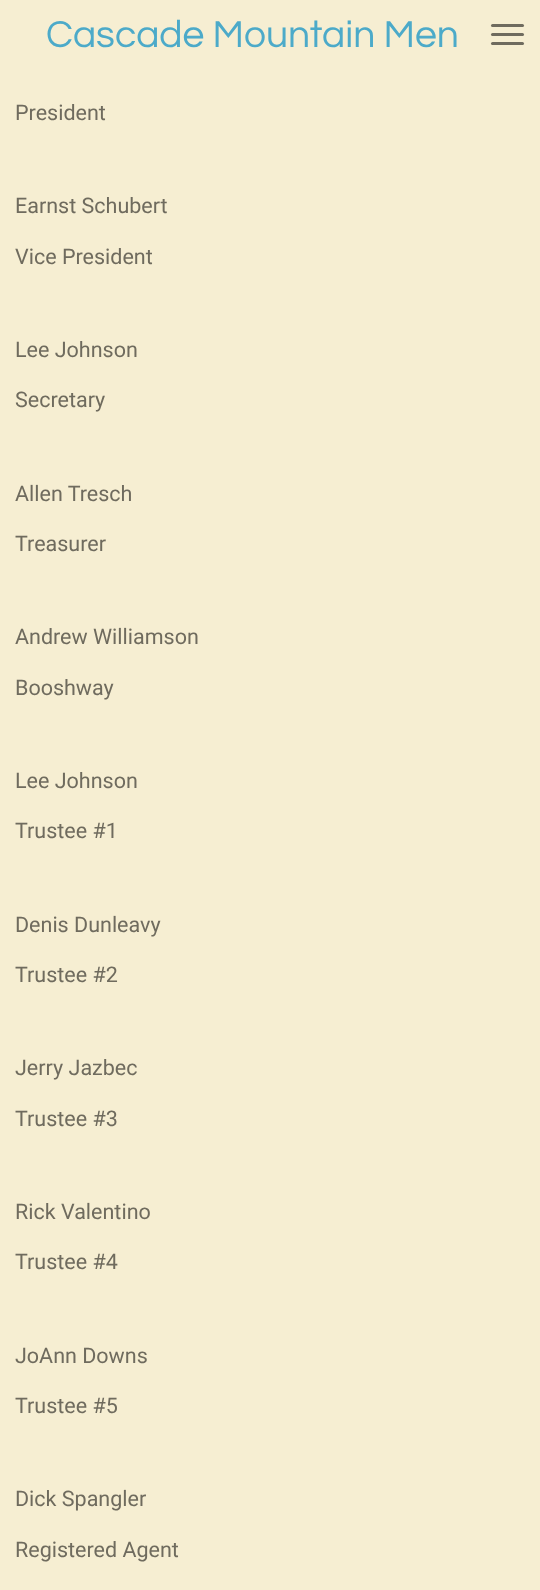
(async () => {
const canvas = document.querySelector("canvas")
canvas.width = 540
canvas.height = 1590
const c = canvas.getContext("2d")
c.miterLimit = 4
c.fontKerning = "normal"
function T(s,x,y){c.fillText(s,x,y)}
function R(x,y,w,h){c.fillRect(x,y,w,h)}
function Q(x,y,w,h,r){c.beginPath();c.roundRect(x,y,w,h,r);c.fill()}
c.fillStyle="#f6eed2"
R(0,0,540,1590)
c.font="39px Questrial"
c.fillStyle="#4caac9"
T("Cascade Mountain Men",46,47)
c.fillStyle="#6f6b5e"
Q(491,33,33,3,1.5)
Q(491,24,33,3,1.5)
Q(491,42,33,3,1.5)
c.font="21.5px Roboto"
T("President",15,120)
T("Earnst Schubert",15,213)
T("Vice President",15,264)
T("Lee Johnson",15,357)
T("Secretary",15,407)
T("Allen Tresch",15,501)
T("Treasurer",15,551)
T("Andrew Williamson",15,644)
T("Booshway",15,695)
T("Lee Johnson",15,788)
T("Trustee #1",15,838)
T("Denis Dunleavy",15,932)
T("Trustee #2",15,982)
T("Jerry Jazbec",15,1075)
T("Trustee #3",15,1126)
T("Rick Valentino",15,1219)
T("Trustee #4",15,1269)
T("JoAnn Downs",15,1363)
T("Trustee #5",15,1413)
T("Dick Spangler",15,1506)
T("Registered Agent",15,1557)
})()
